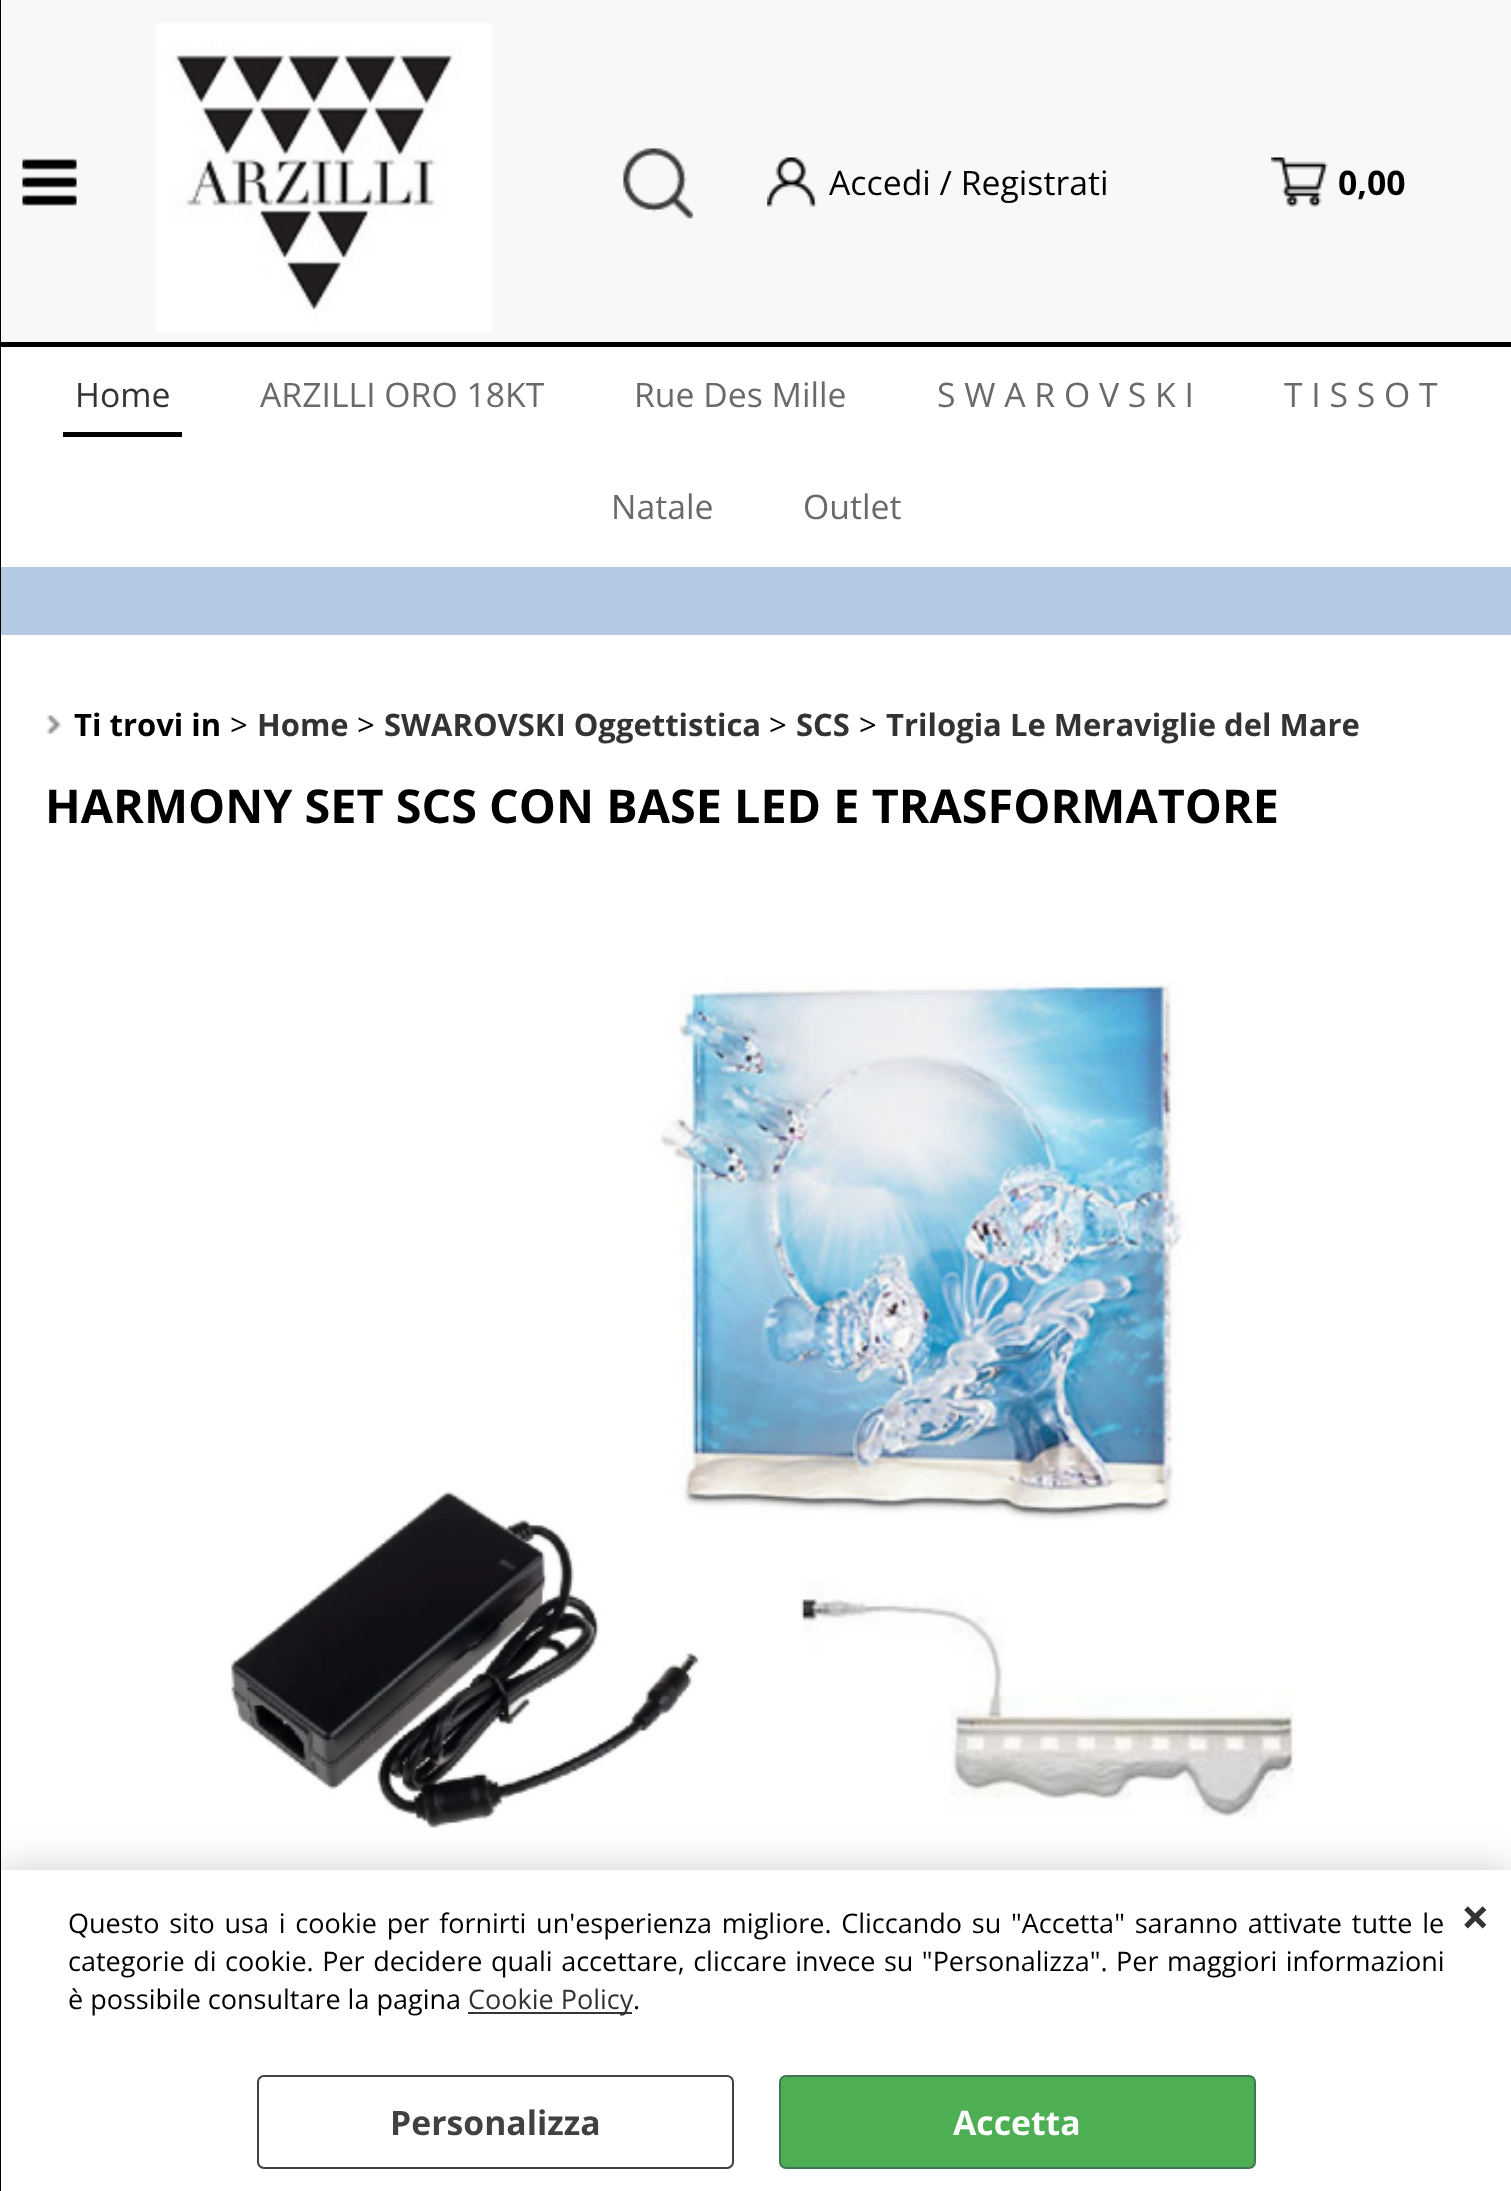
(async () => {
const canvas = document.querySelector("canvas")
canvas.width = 1511
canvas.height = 2191
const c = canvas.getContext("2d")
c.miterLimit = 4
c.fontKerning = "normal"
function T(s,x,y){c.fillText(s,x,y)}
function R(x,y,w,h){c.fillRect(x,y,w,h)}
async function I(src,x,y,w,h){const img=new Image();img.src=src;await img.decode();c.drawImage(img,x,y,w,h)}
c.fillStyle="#fff"
R(0,0,1511,2191)
c.fillStyle="#000"
R(0,342,1511,5)
await I("7.png",230,981,1065,847)
c.fillStyle="#00000033"
c.filter="blur(20px)"
c.beginPath()
c.rect(0,1870,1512,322)
c.fill()
c.filter="none"
c.fillStyle="#000"
R(0,0,1,2191)
c.fillStyle="#f8f8f8"
R(1,0,1510,342)
await I("1.png",22,158,55,48)
await I("2.png",155,23,338,310)
await I("3.png",623,148,70,71)
await I("4.png",767,157,50,50)
c.font="33.75px Open Sans"
c.fillStyle="#000"
T("Accedi / Registrati",829,195)
await I("5.png",1271,157,57,50)
c.font="bold 33.75px Open Sans"
T("0,00",1338,195)
c.fillStyle="#b3cae2"
R(1,567,1510,68)
c.fillStyle="#000"
R(63,432,119,5)
c.font="33.75px Open Sans"
c.fillStyle="#333"
T("Home",75,407)
c.fillStyle="#6b6969"
T("ARZILLI ORO 18KT",260,407)
T("Rue Des Mille",634,407)
T("S W A R O V S K I",937,407)
T("T I S S O T",1284,407)
T("Natale",611,519)
T("Outlet",803,519)
await I("6.png",46,715,16,19)
c.font="bold 31px Open Sans"
c.fillStyle="#000"
T("Ti trovi in",74,736)
c.font="31px Open Sans"
T(">",230,736)
c.font="bold 31px Open Sans"
c.fillStyle="#333"
T("Home",257,736)
c.font="31px Open Sans"
c.fillStyle="#000"
T(">",357,736)
c.font="bold 31px Open Sans"
c.fillStyle="#333"
T("SWAROVSKI Oggettistica",384,736)
c.font="31px Open Sans"
c.fillStyle="#000"
T(">",769,736)
c.font="bold 31px Open Sans"
c.fillStyle="#333"
T("SCS",796,736)
c.font="31px Open Sans"
c.fillStyle="#000"
T(">",859,736)
c.font="bold 31px Open Sans"
c.fillStyle="#333"
T("Trilogia Le Meraviglie del Mare",886,736)
c.font="bold 46.75px Open Sans"
c.fillStyle="#000"
T("HARMONY SET SCS CON BASE LED E TRASFORMATORE",45,823)
c.fillStyle="#fff"
R(1,1870,1510,321)
c.wordSpacing="2.75px"
c.font="27px Open Sans"
c.fillStyle="#000"
T("Questo sito usa i cookie per fornirti un'esperienza migliore. Cliccando su \"Accetta\" saranno attivate tutte le",68,1933)
c.wordSpacing="1.5px"
T("categorie di cookie. Per decidere quali accettare, cliccare invece su \"Personalizza\". Per maggiori informazioni",68,1971)
c.wordSpacing="0px"
T("è possibile consultare la pagina",68,2009)
c.fillStyle="#343434"
R(468,2012,164,2)
c.fillStyle="#333"
T("Cookie Policy",468,2009)
c.fillStyle="#000"
T(".",633,2009)
c.font="bold 50px Open Sans"
c.fillStyle="#333"
T("×",1461,1935)
c.beginPath()
c.roundRect(258,2076,475,92,6)
c.strokeStyle="#424141"
c.lineWidth=2
c.stroke()
c.font="bold 33.75px Open Sans"
c.fillStyle="#424141"
T("Personalizza",390,2135)
c.fillStyle="#4eae54"
c.beginPath()
c.roundRect(780,2076,475,92,6)
c.fill()
c.strokeStyle="#3f7755"
c.stroke()
c.fillStyle="#fff"
T("Accetta",953,2135)
})()
